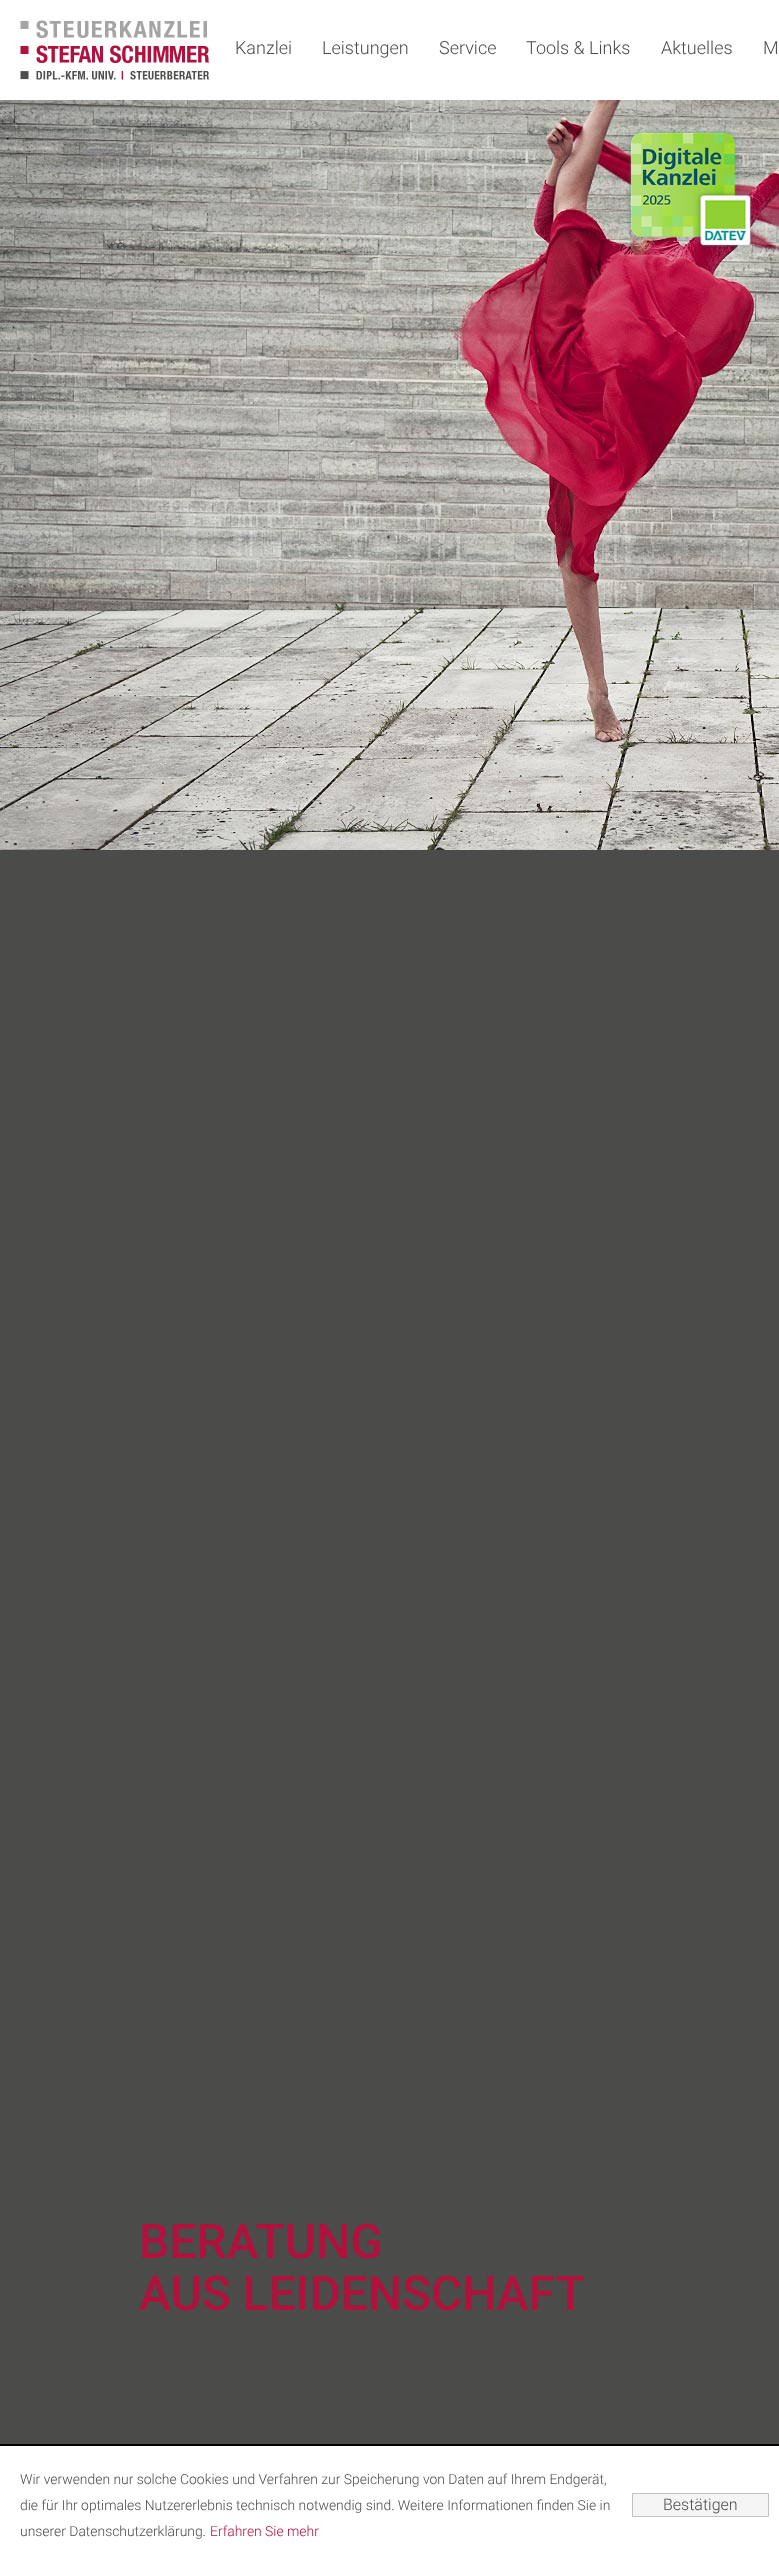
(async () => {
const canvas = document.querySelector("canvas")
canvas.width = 779
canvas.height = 2564
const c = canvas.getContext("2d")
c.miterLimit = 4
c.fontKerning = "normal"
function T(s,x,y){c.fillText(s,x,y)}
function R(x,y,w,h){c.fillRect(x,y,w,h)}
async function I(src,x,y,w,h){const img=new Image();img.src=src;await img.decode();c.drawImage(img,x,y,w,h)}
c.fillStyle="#4b4b4a"
R(0,0,779,2564)
c.fillStyle="#fff"
R(0,0,779,100)
await I("1.png",20,20,190,60)
c.font="300 18px Roboto"
c.fillStyle="#4b4b4a"
T("Kanzlei",235,54)
T("Leistungen",322,54)
T("Service",439,54)
T("Tools & Links",526,54)
T("Aktuelles",661,54)
T("M",763,54)
await I("3.png",0,100,779,750)
await I("2.png",627,129,129,122)
c.font="500 48px Roboto"
c.fillStyle="#b0113d"
T("BERATUNG",139,2258)
T("AUS LEIDENSCHAFT",139,2310)
c.fillStyle="#fff"
R(0,2446,779,118)
c.fillStyle="#000"
R(0,2444,779,2)
c.font="300 13.9px Roboto"
c.fillStyle="#4b4b4a"
T("Wir verwenden nur solche Cookies und Verfahren zur Speicherung von Daten auf Ihrem Endgerät,",20,2484)
T("die für Ihr optimales Nutzererlebnis technisch notwendig sind. Weitere Informationen finden Sie in",20,2510)
T("unserer Datenschutzerklärung.",20,2536)
c.fillStyle="#b0113d"
T("Erfahren Sie mehr",210,2536)
c.fillStyle="#f5f5f5"
c.beginPath()
c.rect(632.5,2493.5,136,23)
c.fill()
c.strokeStyle="#c2c2c2"
c.stroke()
c.font="300 16px Roboto"
c.fillStyle="#4b4b4a"
T("Bestätigen",663,2510)
})()
